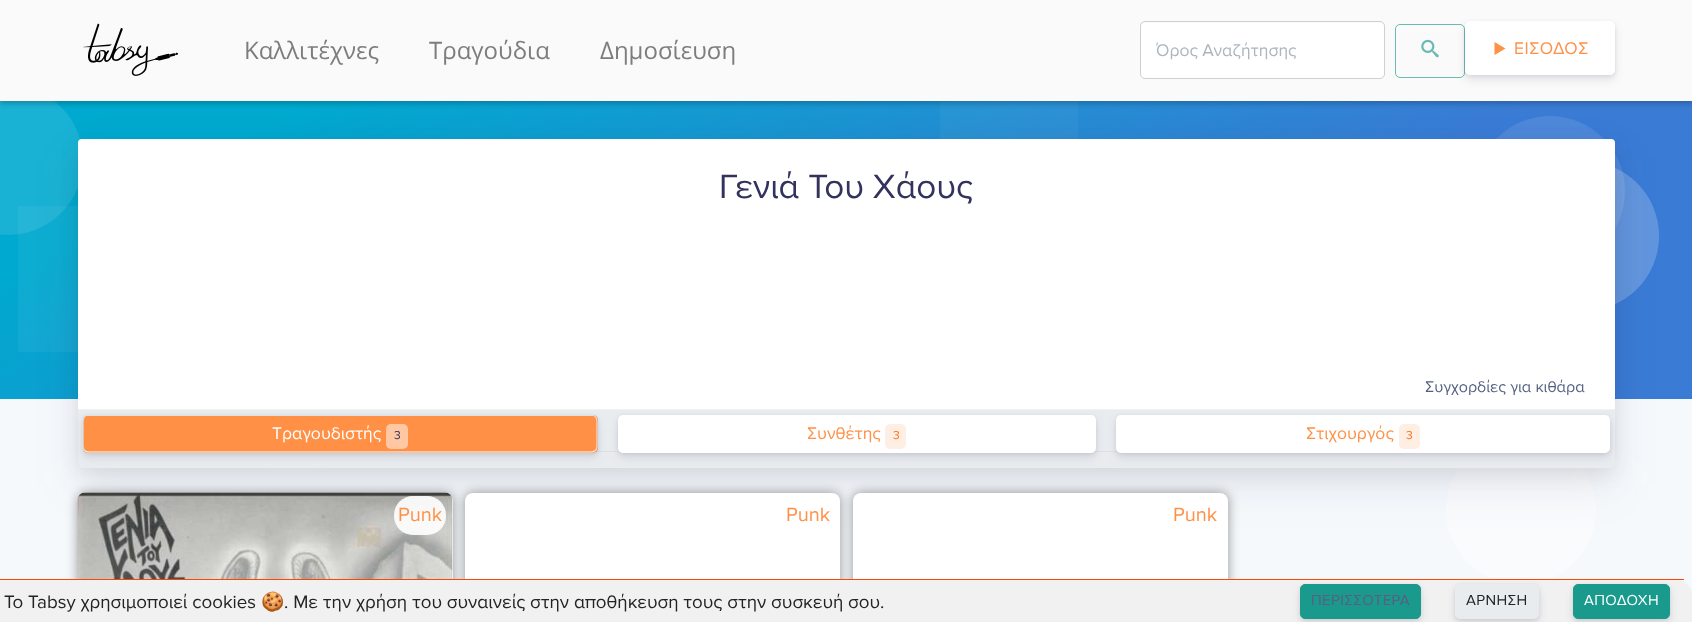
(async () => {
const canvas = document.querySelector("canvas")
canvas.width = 1692
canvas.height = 622
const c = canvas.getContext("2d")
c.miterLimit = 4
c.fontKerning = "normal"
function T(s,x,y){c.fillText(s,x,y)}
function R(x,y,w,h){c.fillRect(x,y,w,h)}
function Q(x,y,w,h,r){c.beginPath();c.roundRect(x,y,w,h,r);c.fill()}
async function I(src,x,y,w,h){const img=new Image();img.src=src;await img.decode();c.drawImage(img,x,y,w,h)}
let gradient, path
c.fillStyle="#f6f9fc"
R(0,0,1692,622)
gradient = c.createLinearGradient(567,-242,1126,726)
gradient.addColorStop(.15,"#00a9cf")
gradient.addColorStop(.7,"#3a7bd5")
gradient.addColorStop(.94,"#3a7bd5")
c.fillStyle = gradient
R(0,101,1692,298)
c.fillStyle="#1ab2d4"
c.beginPath()
c.arc(8,160,75,0,7)
c.fill()
c.fillStyle="#ffffff0a"
R(940,101,138,38)
c.fillStyle="#00000033"
c.filter="blur(2.5px)"
c.beginPath()
c.rect(0,3,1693,101)
c.fill()
c.filter="none"
c.fillStyle="#4e88d9"
c.beginPath()
c.arc(1550,191,75,0,7)
c.fill()
c.fillStyle="#ffffff0d"
R(18,206,60,146)
c.fillStyle="#ffffff26"
c.beginPath()
c.arc(294,349,125,0,7)
c.fill()
c.fillStyle="#ffffff33"
c.beginPath()
c.arc(1584,236,75,0,7)
c.fill()
c.fillStyle="#f9fbfd"
c.beginPath()
c.arc(1521,510,75,0,7)
c.fill()
c.fillStyle="#32325d1a"
c.filter="blur(22px)"
c.beginPath()
c.roundRect(78,158,1537,328,5)
c.fill()
c.filter="none"
c.fillStyle="#fafafa"
R(0,0,1692,101)
await I("1.png",83,23,96,53)
c.font="24px Open Sans"
c.fillStyle="#7d7d7d"
T("Καλλιτέχνες",244,59)
T("Τραγούδια",429,59)
T("Δημοσίευση",600,59)
c.fillStyle="#fff"
Q(1141,23,243,55,4)
c.beginPath()
c.roundRect(1140.5,21.5,244,57,4.5)
c.strokeStyle="#cad1d7"
c.stroke()
c.font="17.5px Proxima Nova"
c.fillStyle="#adb5bd"
T("Όρος Αναζήτησης",1156,56)
c.beginPath()
c.roundRect(1395.5,24.5,69,53,4.5)
c.strokeStyle="#68bcb3"
c.stroke()
await I("2.png",1421,39,18,19)
c.fillStyle="#00000014"
c.filter="blur(2px)"
c.beginPath()
c.roundRect(1465,23,150,53,5)
c.fill()
c.filter="none"
c.fillStyle="#32325d1c"
c.filter="blur(4px)"
c.beginPath()
c.roundRect(1465,26,150,54,5)
c.fill()
c.filter="none"
c.fillStyle="#fff"
c.beginPath()
c.roundRect(1465.5,21.5,149,53,4.5)
c.fill()
c.strokeStyle="#fff"
c.stroke()
c.fillStyle="#ff9046"
path = new Path2D("M1494.5 42l11 6.5l-11 6.5z")
c.fill(path)
c.letterSpacing="0.5px"
T("ΕΙΣΟΔΟΣ",1514,54)
c.fillStyle="#00000012"
c.filter="blur(9.5px)"
c.beginPath()
c.roundRect(78,145,1537,329,5)
c.fill()
c.filter="none"
c.fillStyle="#e9ecef"
Q(78,139,1537,329,5)
c.fillStyle="#fff"
c.beginPath()
c.roundRect(78,139,1537,271,[4,4,0,0])
c.fill()
c.fillStyle="#f2f2f2"
R(78,409,1537,1)
c.letterSpacing="0px"
c.font="35px Proxima Nova"
c.fillStyle="#32325d"
T("Γενιά Του Χάους",719,198)
c.font="16px Proxima Nova"
c.fillStyle="#525f7f"
T("Συγχορδίες για κιθάρα",1425,392)
c.fillStyle="#dee2e6"
R(83,451,1527,1)
c.fillStyle="#00000014"
c.filter="blur(2px)"
c.beginPath()
c.roundRect(83,416,515,38,5)
c.fill()
c.filter="none"
c.fillStyle="#32325d1c"
c.filter="blur(4px)"
c.beginPath()
c.roundRect(83,420,515,38,5)
c.fill()
c.filter="none"
c.fillStyle="#ff9046"
Q(83,415,515,38,5)
path = new Path2D("M595.5 450.5l-3 1.5h-505l-3-1.5")
c.strokeStyle="#f6f9fc"
c.lineWidth=1.2
c.stroke(path)
path = new Path2D("M84.5 450.5c-2-2-1.5-5-1.5-7.5v-18.5c0-3-.5-8 3.5-9h507c4 1 3.5 6 3.5 9v18.5c0 2.5 .5 5.5-1.5 7.5")
c.strokeStyle="#dee2e6"
c.stroke(path)
c.font="17.5px Proxima Nova"
c.fillStyle="#fff"
T("Τραγουδιστής",272,439)
c.fillStyle="#ffc8a3"
Q(386,424,22,25,5)
c.font="12px Proxima Nova"
c.fillStyle="#32325d"
T("3",394,439)
c.fillStyle="#00000014"
c.filter="blur(2px)"
c.beginPath()
c.roundRect(618,416,478,38,5)
c.fill()
c.filter="none"
c.fillStyle="#32325d1c"
c.filter="blur(4px)"
c.beginPath()
c.roundRect(618,420,478,38,5)
c.fill()
c.filter="none"
c.fillStyle="#fff"
Q(618,415,478,38,5)
c.font="17.5px Proxima Nova"
c.fillStyle="#ff9046"
T("Συνθέτης",807,439)
c.fillStyle="#ffeee3"
Q(885,424,21,25,5)
c.font="12px Proxima Nova"
c.fillStyle="#ff7113"
T("3",893,439)
c.fillStyle="#00000014"
c.filter="blur(2px)"
c.beginPath()
c.roundRect(1116,416,494,38,5)
c.fill()
c.filter="none"
c.fillStyle="#32325d1c"
c.filter="blur(4px)"
c.beginPath()
c.roundRect(1116,420,494,38,5)
c.fill()
c.filter="none"
c.fillStyle="#fff"
Q(1116,415,494,38,5)
c.font="17.5px Proxima Nova"
c.fillStyle="#ff9046"
T("Στιχουργός",1306,439)
c.fillStyle="#ffeee3"
Q(1399,424,21,25,5)
c.font="12px Proxima Nova"
c.fillStyle="#ff7113"
T("3",1406,439)
c.fillStyle="#00000066"
c.filter="blur(6px)"
c.beginPath()
c.roundRect(78,493,375,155,8)
c.fill()
c.filter="none"
c.fillStyle="#fff"
Q(78,493,375,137,8)
c.fillStyle="#00000066"
c.filter="blur(6px)"
c.beginPath()
c.roundRect(465,493,375,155,8)
c.fill()
c.filter="none"
await I("3.png",77,492,376,87)
c.fillStyle="#ffffffe6"
Q(394,496,52,39,19)
c.font="20px Proxima Nova"
c.fillStyle="#ff9046"
T("Punk",398,521)
c.fillStyle="#fff"
Q(465,493,375,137,8)
c.fillStyle="#ff9046"
T("Punk",786,521)
c.fillStyle="#00000066"
c.filter="blur(6px)"
c.beginPath()
c.roundRect(853,493,375,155,8)
c.fill()
c.filter="none"
c.fillStyle="#fff"
Q(853,493,375,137,8)
c.fillStyle="#ff9046"
T("Punk",1173,521)
c.fillStyle="#f1f1f1"
path = new Path2D("M0 579h1674c10.5 0 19 8.5 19 19v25h-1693z")
c.fill(path)
c.fillStyle="#ff4500"
R(0,579,1684,1)
c.font="18.75px Proxima Nova"
c.fillStyle="#232323"
T("To Tabsy χρησιμοποιεί cookies",4,608)
c.font="18.75px Noto Color Emoji"
T("🍪",261,608)
c.font="18.75px Proxima Nova"
T(". Με την χρήση του συναινείς στην αποθήκευση τους στην συσκευή σου.",284,608)
c.fillStyle="#00000014"
c.filter="blur(2px)"
c.beginPath()
c.roundRect(1300,585,121,35,5)
c.fill()
c.filter="none"
c.fillStyle="#32325d1c"
c.filter="blur(4px)"
c.beginPath()
c.roundRect(1300,589,121,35,5)
c.fill()
c.filter="none"
c.fillStyle="#1a9a8c"
c.beginPath()
c.roundRect(1300.5,584.5,120,34,4.5)
c.fill()
c.strokeStyle="#1a9a8c"
c.lineWidth=1
c.stroke()
c.letterSpacing="0.4px"
c.font="15px Proxima Nova"
c.fillStyle="#5c5d7f"
T("ΠΕΡΙΣΣΟΤΕΡΑ",1311,605)
c.fillStyle="#00000014"
c.filter="blur(2px)"
c.beginPath()
c.roundRect(1455,585,84,35,5)
c.fill()
c.filter="none"
c.fillStyle="#32325d1c"
c.filter="blur(4px)"
c.beginPath()
c.roundRect(1455,589,84,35,5)
c.fill()
c.filter="none"
c.fillStyle="#e9ecef"
c.beginPath()
c.roundRect(1455.5,584.5,83,34,4.5)
c.fill()
c.strokeStyle="#e9ecef"
c.stroke()
c.fillStyle="#212529"
T("ΑΡΝΗΣΗ",1466,605)
c.fillStyle="#00000014"
c.filter="blur(2px)"
c.beginPath()
c.roundRect(1573,585,97,35,5)
c.fill()
c.filter="none"
c.fillStyle="#32325d1c"
c.filter="blur(4px)"
c.beginPath()
c.roundRect(1573,589,97,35,5)
c.fill()
c.filter="none"
c.fillStyle="#1a9a8c"
c.beginPath()
c.roundRect(1573.5,584.5,96,34,4.5)
c.fill()
c.strokeStyle="#1a9a8c"
c.stroke()
c.fillStyle="#fff"
T("ΑΠΟΔΟΧΗ",1584,605)
})()
